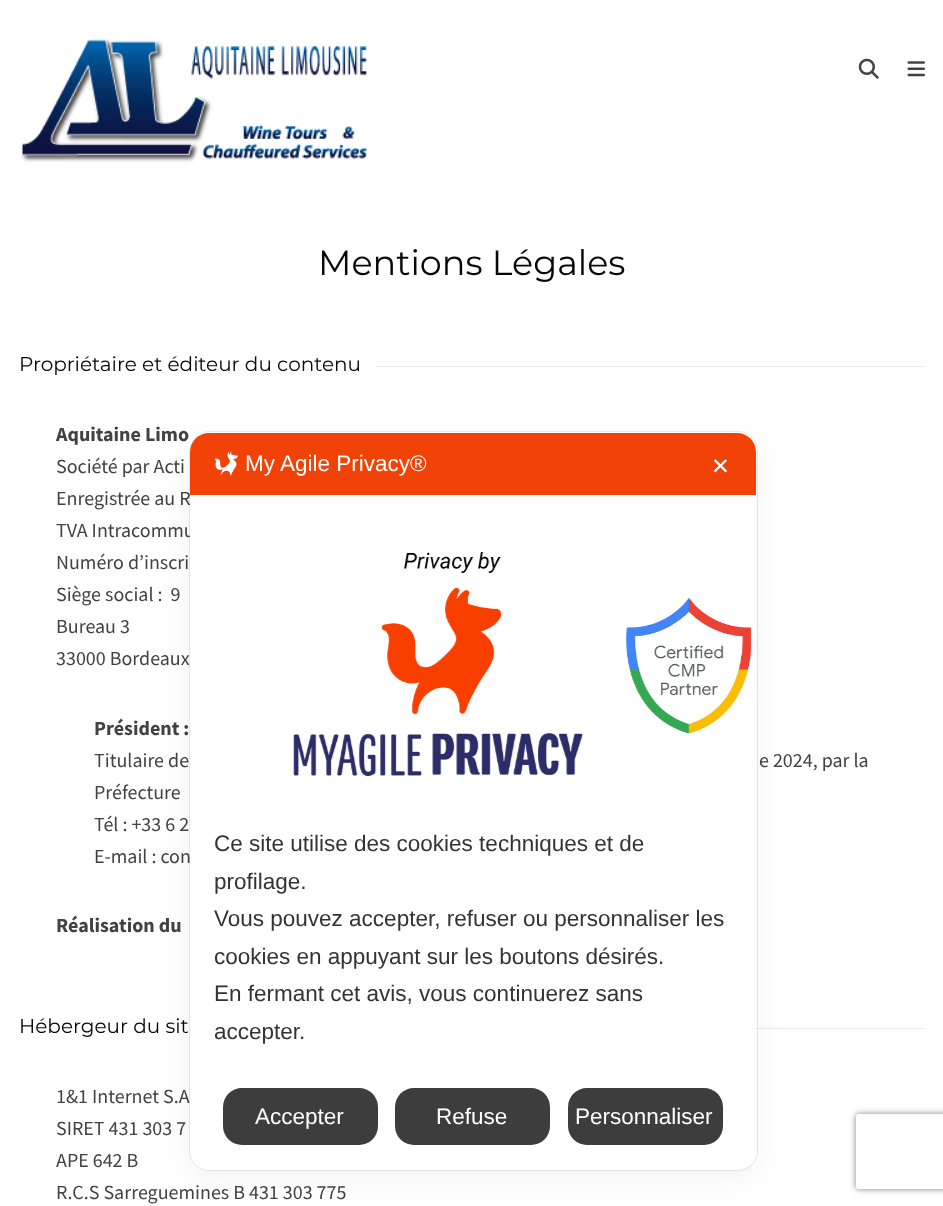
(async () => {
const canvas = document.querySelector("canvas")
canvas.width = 943
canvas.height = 1206
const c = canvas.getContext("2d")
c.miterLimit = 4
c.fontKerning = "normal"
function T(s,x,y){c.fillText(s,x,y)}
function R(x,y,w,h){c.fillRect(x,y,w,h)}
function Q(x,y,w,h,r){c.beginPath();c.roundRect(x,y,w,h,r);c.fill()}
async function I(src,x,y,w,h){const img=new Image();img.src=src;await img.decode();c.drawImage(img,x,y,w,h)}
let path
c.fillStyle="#fff"
R(0,0,943,1206)
await I("1.png",21,38,347,124)
await I("2.png",858,58,21,21)
await I("3.png",907,61,18,16)
c.font="35px Montserrat"
c.fillStyle="#070707"
T("Mentions Légales",318,275)
c.font="20px Montserrat"
T("Propriétaire et éditeur du contenu",19,371)
c.fillStyle="#ebebeb"
R(376,366,549,1)
c.font="bold 20px Source Sans Pro"
c.fillStyle="#424242"
T("Aquitaine Limo",56,441)
c.font="20px Source Sans Pro"
T("Société par Acti",56,473)
T("Enregistrée au R",56,505)
T("TVA Intracommu",56,537)
T("Numéro d’inscri",56,569)
T("Siège social :  9",56,601)
T("Bureau 3",56,633)
T("33000 Bordeaux",56,665)
c.font="bold 20px Source Sans Pro"
T("Président :",94,735)
c.font="20px Source Sans Pro"
T("Titulaire de",94,767)
T("e 2024, par la",759,767)
T("Préfecture",94,799)
T("Tél : +33 6 2",94,831)
T("E-mail : con",94,863)
c.font="bold 20px Source Sans Pro"
T("Réalisation du",56,932)
c.font="20px Montserrat"
c.fillStyle="#070707"
T("Hébergeur du sit",19,1033)
c.fillStyle="#ebebeb"
R(756,1028,169,1)
c.font="20px Source Sans Pro"
c.fillStyle="#424242"
T("1&1 Internet S.A",56,1103)
T("SIRET 431 303 7",56,1135)
T("APE 642 B",56,1167)
T("R.C.S Sarreguemines B 431 303 775",56,1199)
c.beginPath()
c.roundRect(189.5,431.5,568,739,19.5)
c.strokeStyle="#00000014"
c.stroke()
c.fillStyle="#0000000d"
c.filter="blur(15px)"
c.beginPath()
c.roundRect(190,440,566,738,19)
c.fill()
c.filter="none"
c.fillStyle="#fff"
Q(190,433,566,737,19)
c.fillStyle="#f14307"
c.beginPath()
c.roundRect(190,433,566,62,[19,19,0,0])
c.fill()
await I("4.png",215,451,23,25)
c.font="22.5px Liberation Sans"
c.fillStyle="#fff"
T("My Agile Privacy®",245,471)
c.font="22.5px DejaVu Sans"
T("✕",711,474)
await I("5.png",293,552,459,225)
c.font="22.5px Liberation Sans"
c.fillStyle="#333"
T("Ce site utilise des cookies techniques et de",214,851)
T("profilage.",214,889)
T("Vous pouvez accepter, refuser ou personnaliser les",214,926)
T("cookies en appuyant sur les boutons désirés.",214,964)
T("En fermant cet avis, vous continuerez sans",214,1001)
T("accepter.",214,1039)
c.fillStyle="#3d3d3d"
Q(223,1088,155,57,19)
c.fillStyle="#fff"
T("Accepter",255,1124)
c.fillStyle="#3d3d3d"
Q(395,1088,155,57,19)
c.fillStyle="#fff"
T("Refuse",436,1124)
c.fillStyle="#3d3d3d"
Q(568,1088,155,57,19)
c.fillStyle="#fff"
T("Personnaliser",575,1124)
c.save()
path = new Path2D("M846 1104h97v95h-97zm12.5 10h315c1.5 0 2.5 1 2.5 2.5v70c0 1.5-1 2.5-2.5 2.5h-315c-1.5 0-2.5-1-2.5-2.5v-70c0-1.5 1-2.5 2.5-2.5z")
c.clip(path,"evenodd")
c.fillStyle="#808080"
c.filter="blur(3px)"
c.beginPath()
c.roundRect(856,1114,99,75,2.5)
c.fill()
c.filter="none"
c.restore()
})()
